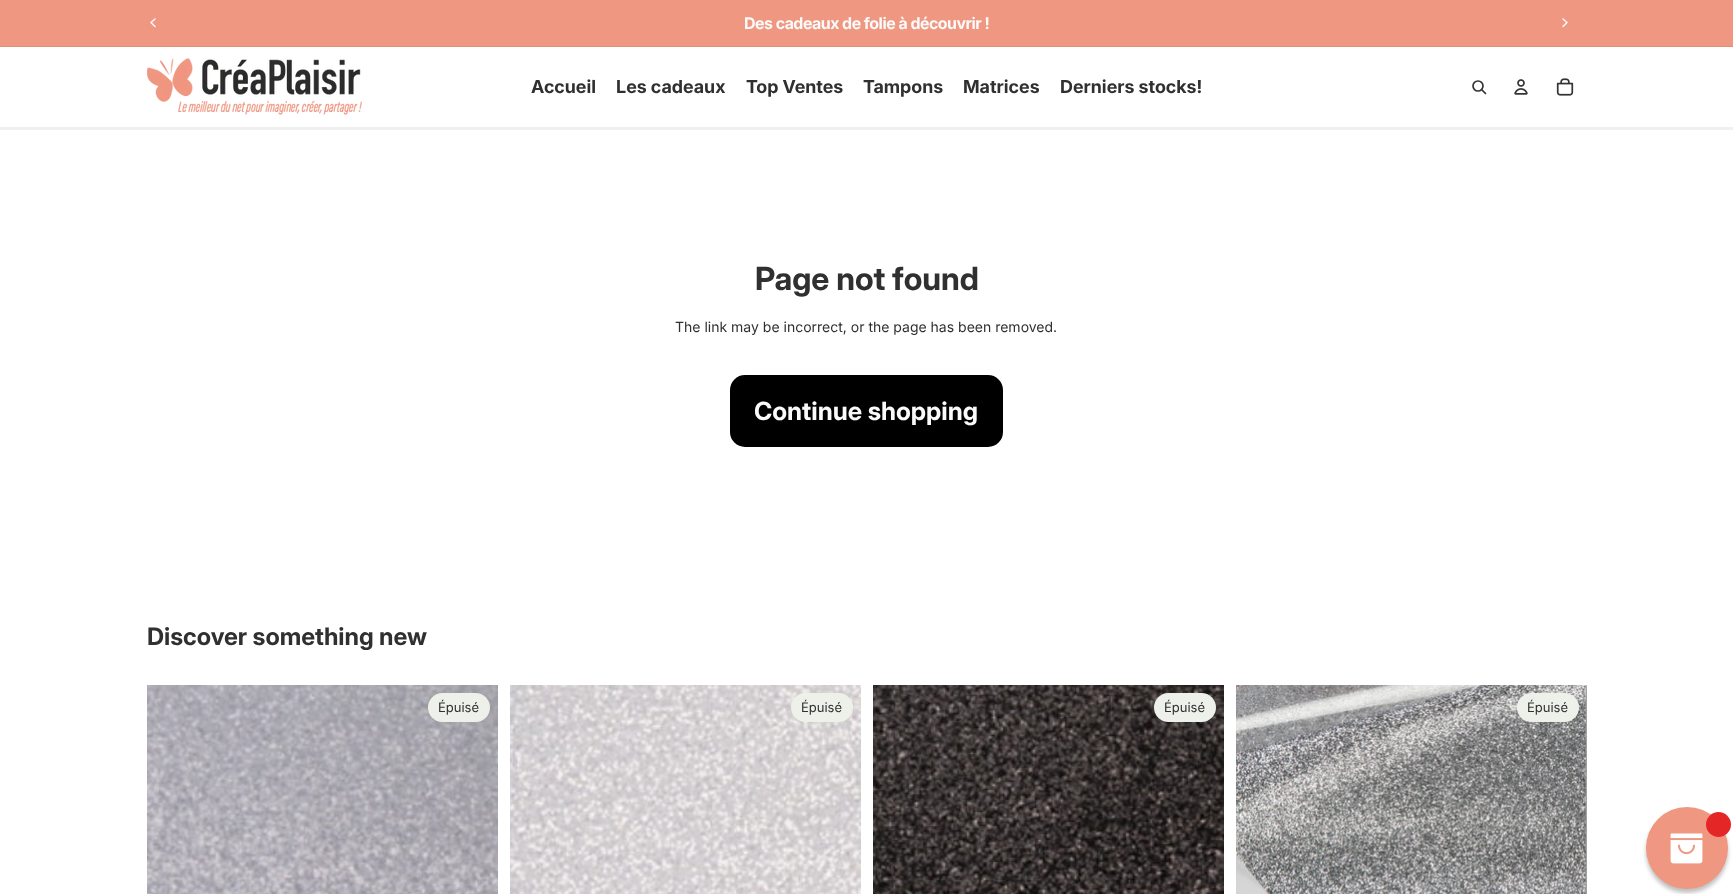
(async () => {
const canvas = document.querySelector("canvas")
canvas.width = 1733
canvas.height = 894
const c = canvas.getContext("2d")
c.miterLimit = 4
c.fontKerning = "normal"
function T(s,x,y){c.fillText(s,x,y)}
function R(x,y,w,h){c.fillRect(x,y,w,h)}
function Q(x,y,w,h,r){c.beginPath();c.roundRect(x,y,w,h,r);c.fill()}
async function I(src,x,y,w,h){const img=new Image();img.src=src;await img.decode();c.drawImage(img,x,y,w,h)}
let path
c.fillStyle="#fff"
R(0,0,1733,894)
c.fillStyle="#ef9781"
R(0,0,1733,46)
c.fillStyle="#e18e79"
R(0,46,1733,1)
c.letterSpacing="-0.5px"
c.font="bold 16px Inter"
c.fillStyle="#fafafa"
T("Des cadeaux de folie à découvrir !",744,29)
path = new Path2D("M155 19l-4 3.5l4 4")
c.strokeStyle="#fafafa"
c.lineWidth=1.5
c.lineCap="round"
c.lineJoin="round"
c.stroke(path)
path = new Path2D("M1563 19l4 3.5l-4 4")
c.stroke(path)
c.fillStyle="#f0f0f0"
R(0,127,1733,3)
await I("1.png",147,58,215,57)
c.letterSpacing="0px"
c.font="bold 18px 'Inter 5'"
c.fillStyle="#303030"
T("Accueil",531,93)
T("Les cadeaux",616,93)
T("Top Ventes",746,93)
T("Tampons",863,93)
T("Matrices",963,93)
T("Derniers stocks!",1060,93)
c.beginPath()
c.arc(1478,86,5,0,7)
c.strokeStyle="#333"
c.lineWidth=1.7
c.stroke()
path = new Path2D("M1482 90l3.5 3.5")
c.stroke(path)
await I("2.png",1514,79,14,16)
await I("3.png",1556,78,18,18)
c.font="bold 32px 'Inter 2'"
T("Page not found",755,290)
c.font="14px Inter"
T("The link may be incorrect, or the page has been removed.",675,332)
c.fillStyle="#000"
Q(730,375,273,72,15)
c.font="bold 25px 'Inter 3'"
c.fillStyle="#fafafa"
T("Continue shopping",754,420)
c.font="bold 24px 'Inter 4'"
c.fillStyle="#303030"
T("Discover something new",147,645)
await I("4.png",147,685,351,209)
c.fillStyle="#eef1ea"
Q(428,693,62,29,14.5)
c.font="13px Inter"
c.fillStyle="#303030"
T("Épuisé",438,712)
await I("5.png",510,685,351,209)
c.fillStyle="#eef1ea"
Q(791,693,62,29,14.5)
c.fillStyle="#303030"
T("Épuisé",801,712)
await I("6.png",873,685,351,209)
c.fillStyle="#eef1ea"
Q(1154,693,62,29,14.5)
c.fillStyle="#303030"
T("Épuisé",1164,712)
await I("7.png",1236,685,351,209)
c.fillStyle="#eef1ea"
Q(1517,693,62,29,14.5)
c.fillStyle="#303030"
T("Épuisé",1527,712)
c.fillStyle="#00000040"
c.filter="blur(2px)"
c.beginPath()
c.roundRect(1646,811,82,82,41)
c.fill()
c.filter="none"
c.fillStyle="#ef9781"
c.beginPath()
c.arc(1687,848,41,0,7)
c.fill()
c.fillStyle="#e42626"
c.beginPath()
c.arc(1718.5,824.5,12.5,0,7)
c.fill()
await I("8.png",1670,833,33,31)
})()
